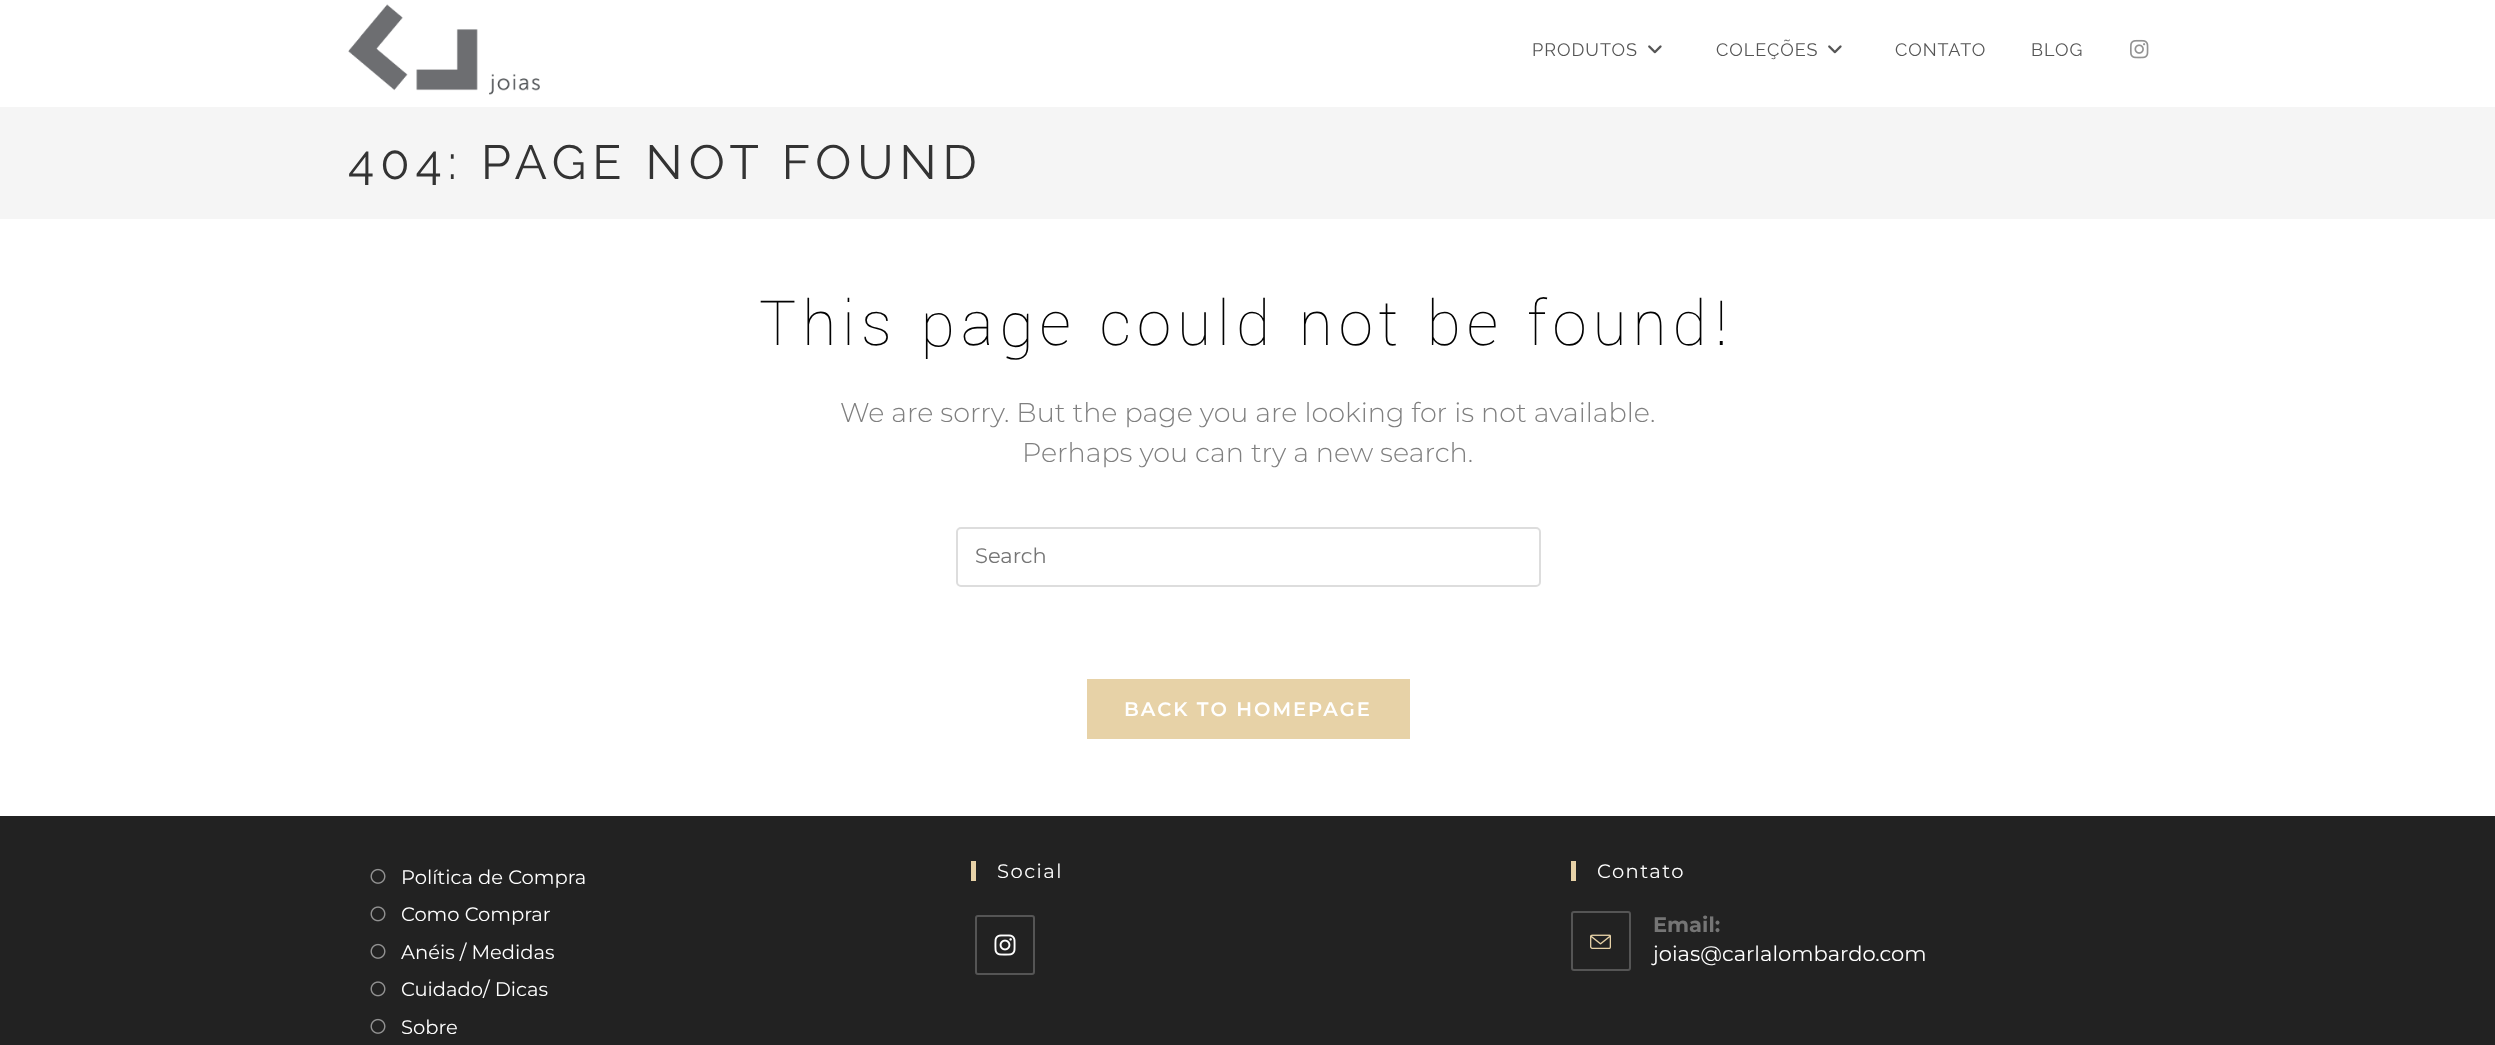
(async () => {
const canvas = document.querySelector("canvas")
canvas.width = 2495
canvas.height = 1045
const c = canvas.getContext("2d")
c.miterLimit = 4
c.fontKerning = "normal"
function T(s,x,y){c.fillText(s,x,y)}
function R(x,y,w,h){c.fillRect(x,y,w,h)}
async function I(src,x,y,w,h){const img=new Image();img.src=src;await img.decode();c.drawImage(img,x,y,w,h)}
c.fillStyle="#fff"
R(0,0,2495,1045)
await I("1.png",348,4,192,91)
c.letterSpacing="1px"
c.font="18px Raleway"
c.fillStyle="#555"
T("PRODUTOS",1532,56)
await I("2.png",1648,45,14,9)
T("COLEÇÕES",1716,56)
await I("2.png",1828,45,14,9)
T("CONTATO",1895,56)
T("BLOG",2031,56)
await I("3.png",2130,39,19,20)
c.fillStyle="#f5f5f5"
R(0,107,2495,112)
c.letterSpacing="6px"
c.font="48px Raleway"
c.fillStyle="#333"
T("404: PAGE NOT FOUND",348,179)
c.font="100 69px Yantramanav"
c.fillStyle="#020202"
T("This page could not be found!",759,345)
c.letterSpacing="0px"
c.font="300 27px Montserrat"
c.fillStyle="#7f7f7f"
T("We are sorry. But the page you are looking for is not available.",840,422)
T("Perhaps you can try a new search.",1022,462)
c.beginPath()
c.roundRect(957,528,583,58,4)
c.strokeStyle="#ddd"
c.lineWidth=2
c.stroke()
c.font="21px Montserrat"
c.fillStyle="#757575"
T("Search",975,563)
c.fillStyle="#e7d2a7"
R(1087,679,323,60)
c.letterSpacing="2px"
c.font="600 19.5px Montserrat"
c.fillStyle="#fff"
T("BACK TO HOMEPAGE",1124,716)
c.fillStyle="#222"
R(0,816,2495,229)
await I("4.png",370,868,16,16)
c.letterSpacing="0px"
c.font="19.5px Montserrat"
c.fillStyle="#fff"
T("Política de Compra",401,884)
await I("5.png",370,906,16,16)
T("Como Comprar",401,921)
await I("4.png",370,943,16,16)
T("Anéis / Medidas",401,959)
await I("5.png",370,981,16,16)
T("Cuidado/ Dicas",401,996)
await I("4.png",370,1018,16,16)
T("Sobre",401,1034)
c.fillStyle="#e7d2a7"
R(971,861,5,20)
c.letterSpacing="1.5px"
c.fillStyle="#fff"
T("Social",997,878)
c.beginPath()
c.roundRect(976,916,58,58,2)
c.strokeStyle="#555"
c.stroke()
await I("6.png",994,934,22,22)
c.fillStyle="#e7d2a7"
R(1571,861,5,20)
c.fillStyle="#fff"
T("Contato",1597,878)
c.beginPath()
c.roundRect(1572,912,58,58,2)
c.stroke()
await I("7.png",1590,934,21,15)
c.letterSpacing="0px"
c.font="bold 21px Montserrat"
c.fillStyle="#757575"
T("Email:",1653,932)
c.font="21px Montserrat"
c.fillStyle="#fff"
T("joias@carlalombardo.com",1653,961)
})()
